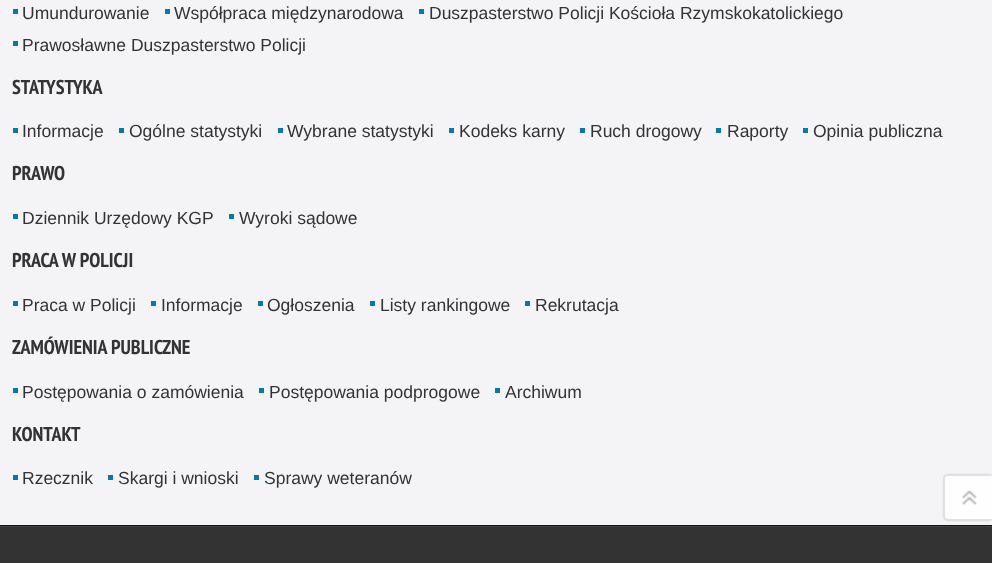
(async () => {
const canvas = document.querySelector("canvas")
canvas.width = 992
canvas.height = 563
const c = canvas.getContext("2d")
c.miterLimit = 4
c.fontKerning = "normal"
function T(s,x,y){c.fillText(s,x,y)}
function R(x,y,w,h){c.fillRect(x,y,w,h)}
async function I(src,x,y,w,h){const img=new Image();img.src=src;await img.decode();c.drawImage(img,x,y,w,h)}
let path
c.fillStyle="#f4f4f6"
R(0,0,992,563)
c.fillStyle="#111"
R(0,525,992,1)
c.fillStyle="#0079b5"
R(13,9,5,5)
c.font="17.5px Liberation Sans"
c.fillStyle="#333"
T("Umundurowanie",22,19)
c.fillStyle="#0079b5"
R(165,9,5,5)
c.fillStyle="#333"
T("Współpraca międzynarodowa",174,19)
c.fillStyle="#0079b5"
R(419,9,5,5)
c.fillStyle="#333"
T("Duszpasterstwo Policji Kościoła Rzymskokatolickiego",429,19)
c.fillStyle="#0079b5"
R(13,41,5,5)
c.fillStyle="#333"
T("Prawosławne Duszpasterstwo Policji",22,51)
c.font="bold 20px PT Sans Narrow"
T("STATYSTYKA",12,94)
c.fillStyle="#0079b5"
R(13,128,5,5)
c.font="17.5px Liberation Sans"
c.fillStyle="#333"
T("Informacje",22,137)
c.fillStyle="#0079b5"
R(119,128,5,5)
c.fillStyle="#333"
T("Ogólne statystyki",129,137)
c.fillStyle="#0079b5"
R(278,128,5,5)
c.fillStyle="#333"
T("Wybrane statystyki",287,137)
c.fillStyle="#0079b5"
R(449,128,5,5)
c.fillStyle="#333"
T("Kodeks karny",459,137)
c.fillStyle="#0079b5"
R(580,128,5,5)
c.fillStyle="#333"
T("Ruch drogowy",590,137)
c.fillStyle="#0079b5"
R(716,128,5,5)
c.fillStyle="#333"
T("Raporty",727,137)
c.fillStyle="#0079b5"
R(803,128,5,5)
c.fillStyle="#333"
T("Opinia publiczna",813,137)
c.font="bold 20px PT Sans Narrow"
T("PRAWO",12,180)
c.fillStyle="#0079b5"
R(13,214,5,5)
c.font="17.5px Liberation Sans"
c.fillStyle="#333"
T("Dziennik Urzędowy KGP",22,224)
c.fillStyle="#0079b5"
R(229,214,5,5)
c.fillStyle="#333"
T("Wyroki sądowe",239,224)
c.font="bold 20px PT Sans Narrow"
T("PRACA W POLICJI",12,267)
c.fillStyle="#0079b5"
R(13,301,5,5)
c.font="17.5px Liberation Sans"
c.fillStyle="#333"
T("Praca w Policji",22,311)
c.fillStyle="#0079b5"
R(151,301,5,5)
c.fillStyle="#333"
T("Informacje",161,311)
c.fillStyle="#0079b5"
R(258,301,5,5)
c.fillStyle="#333"
T("Ogłoszenia",267,311)
c.fillStyle="#0079b5"
R(370,301,5,5)
c.fillStyle="#333"
T("Listy rankingowe",380,311)
c.fillStyle="#0079b5"
R(525,301,5,5)
c.fillStyle="#333"
T("Rekrutacja",535,311)
c.font="bold 20px PT Sans Narrow"
T("ZAMÓWIENIA PUBLICZNE",12,354)
c.fillStyle="#0079b5"
R(13,388,5,5)
c.font="17.5px Liberation Sans"
c.fillStyle="#333"
T("Postępowania o zamówienia",22,398)
c.fillStyle="#0079b5"
R(259,388,5,5)
c.fillStyle="#333"
T("Postępowania podprogowe",269,398)
c.fillStyle="#0079b5"
R(495,388,5,5)
c.fillStyle="#333"
T("Archiwum",505,398)
c.font="bold 20px PT Sans Narrow"
T("KONTAKT",12,441)
c.fillStyle="#0079b5"
R(13,475,5,5)
c.font="17.5px Liberation Sans"
c.fillStyle="#333"
T("Rzecznik",22,484)
c.fillStyle="#0079b5"
R(108,475,5,5)
c.fillStyle="#333"
T("Skargi i wnioski",118,484)
c.fillStyle="#0079b5"
R(254,475,5,5)
c.fillStyle="#333"
T("Sprawy weteranów",264,484)
R(0,527,992,36)
c.fillStyle="#424242"
R(0,526,992,1)
c.fillStyle="#00000040"
c.filter="blur(1px)"
c.beginPath()
c.roundRect(944,475,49,45,4)
c.fill()
c.filter="none"
c.fillStyle="#fefefe"
path = new Path2D("M948 475h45v45h-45c-2 0-4-2-4-4v-37c0-2 2-4 4-4z")
c.fill(path)
c.fillStyle="#e1e1e1"
path = new Path2D("M948 475h44v45h-44c-3 0-4-2-4-4v-37c0-2 1-4 4-4zm0 1h44v43h-44c-2 0-3-1-3-3v-37c0-2 1-3 3-3z")
c.fill(path,"evenodd")
await I("1.png",962,490,15,15)
})()
